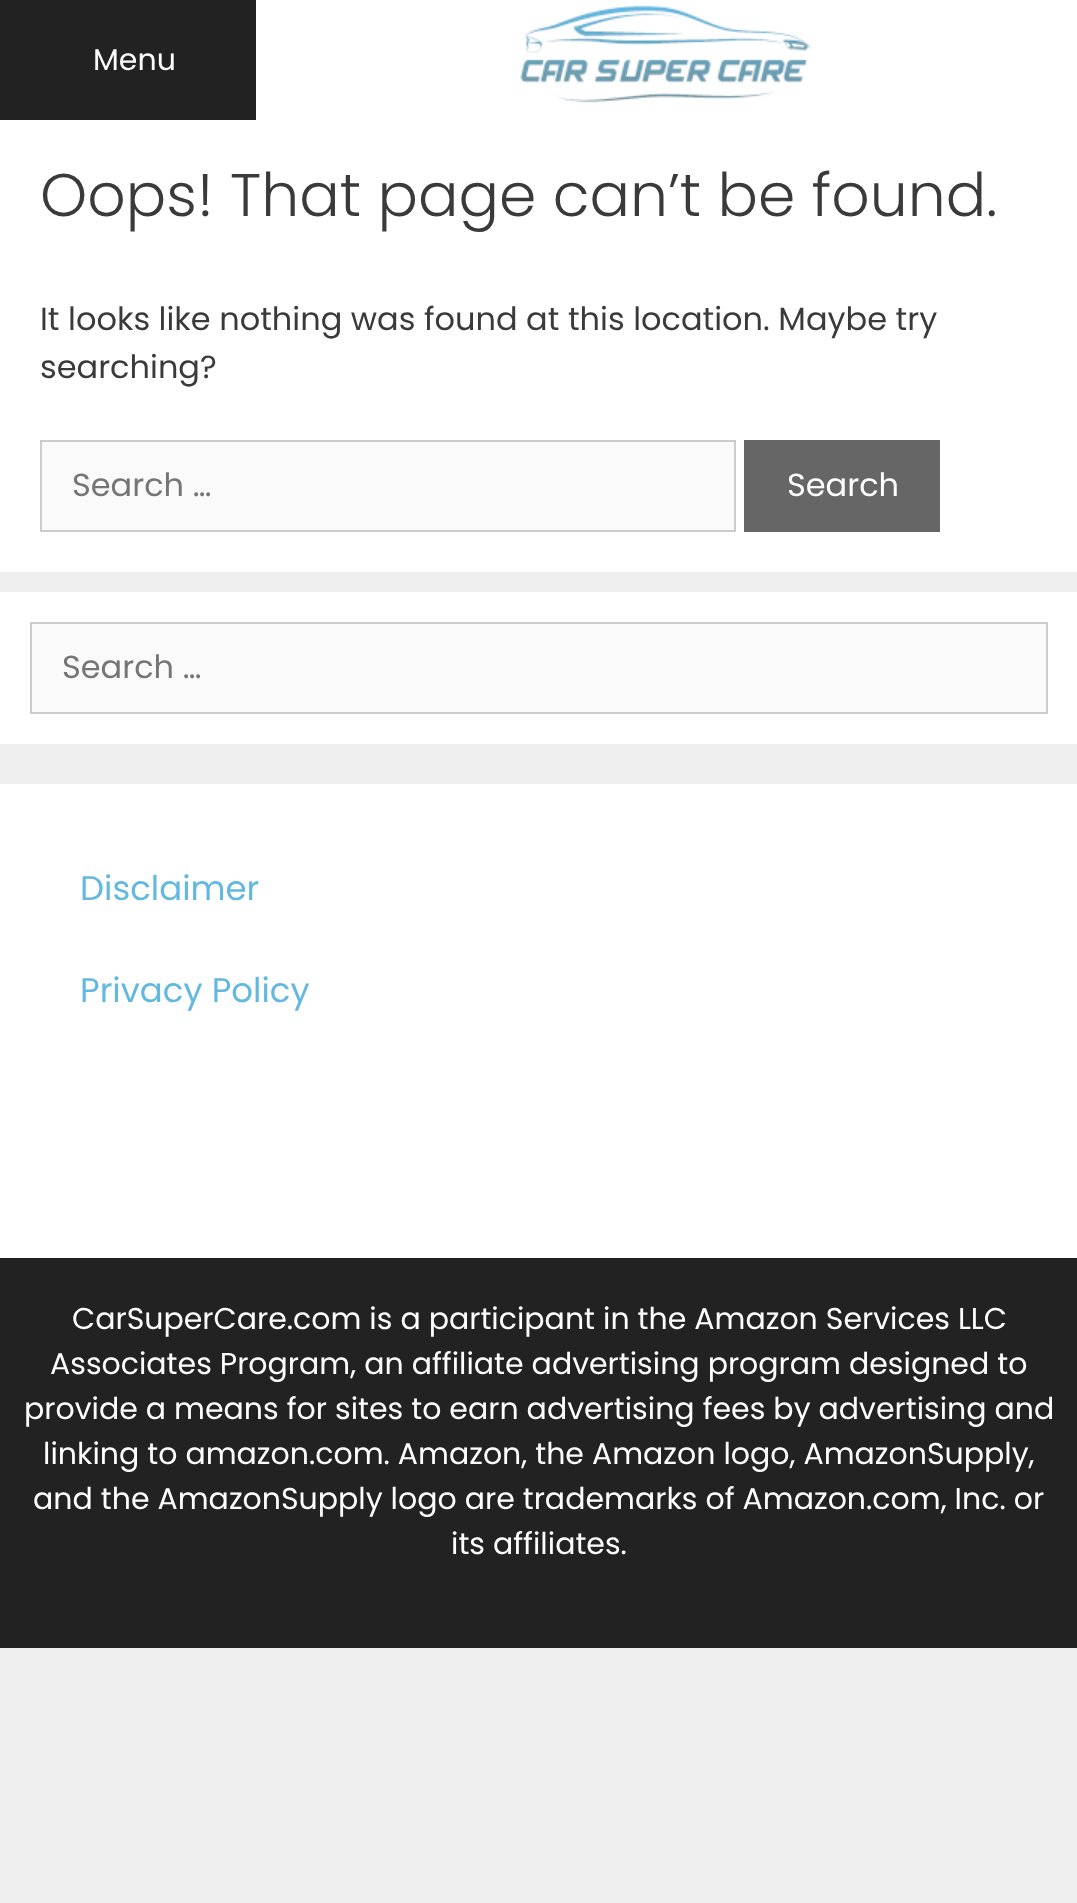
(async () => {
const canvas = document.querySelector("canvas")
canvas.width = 1077
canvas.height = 1903
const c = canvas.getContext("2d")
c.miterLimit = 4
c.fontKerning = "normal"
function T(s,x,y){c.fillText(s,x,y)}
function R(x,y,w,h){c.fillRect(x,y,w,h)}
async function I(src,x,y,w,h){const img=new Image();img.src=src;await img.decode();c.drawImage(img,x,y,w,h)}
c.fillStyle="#efefef"
R(0,0,1077,1903)
c.fillStyle="#fff"
R(256,0,821,120)
c.fillStyle="#222"
R(0,0,256,120)
c.font="30px Poppins"
c.fillStyle="#fff"
T("Menu",93,70)
await I("1.png",520,5,293,98)
R(0,120,1077,452)
c.font="300 60px Poppins"
c.fillStyle="#3a3a3a"
T("Oops! That page can’t be found.",40,216)
c.font="32px Poppins"
T("It looks like nothing was found at this location. Maybe try",40,330)
T("searching?",40,378)
c.fillStyle="#fafafa"
c.beginPath()
c.rect(41,441,694,90)
c.fill()
c.strokeStyle="#ccc"
c.lineWidth=2
c.stroke()
c.fillStyle="#757575"
T("Search …",72,496)
c.fillStyle="#666"
R(744,440,196,92)
c.fillStyle="#fff"
T("Search",787,496)
R(0,592,1077,152)
c.fillStyle="#fafafa"
c.beginPath()
c.rect(31,623,1016,90)
c.fill()
c.stroke()
c.fillStyle="#757575"
T("Search …",62,678)
c.fillStyle="#fff"
R(0,784,1077,474)
c.font="34px Poppins"
c.fillStyle="#62b8e1"
T("Disclaimer",80,900)
T("Privacy Policy",80,1002)
c.fillStyle="#222"
R(0,1258,1077,390)
c.font="30px Poppins"
c.fillStyle="#fff"
T("CarSuperCare.com is a participant in the Amazon Services LLC",72,1329)
T("Associates Program, an affiliate advertising program designed to",50,1374)
T("provide a means for sites to earn advertising fees by advertising and",24,1419)
T("linking to amazon.com. Amazon, the Amazon logo, AmazonSupply,",43,1464)
T("and the AmazonSupply logo are trademarks of Amazon.com, Inc. or",33,1509)
T("its affiliates.",451,1554)
})()
